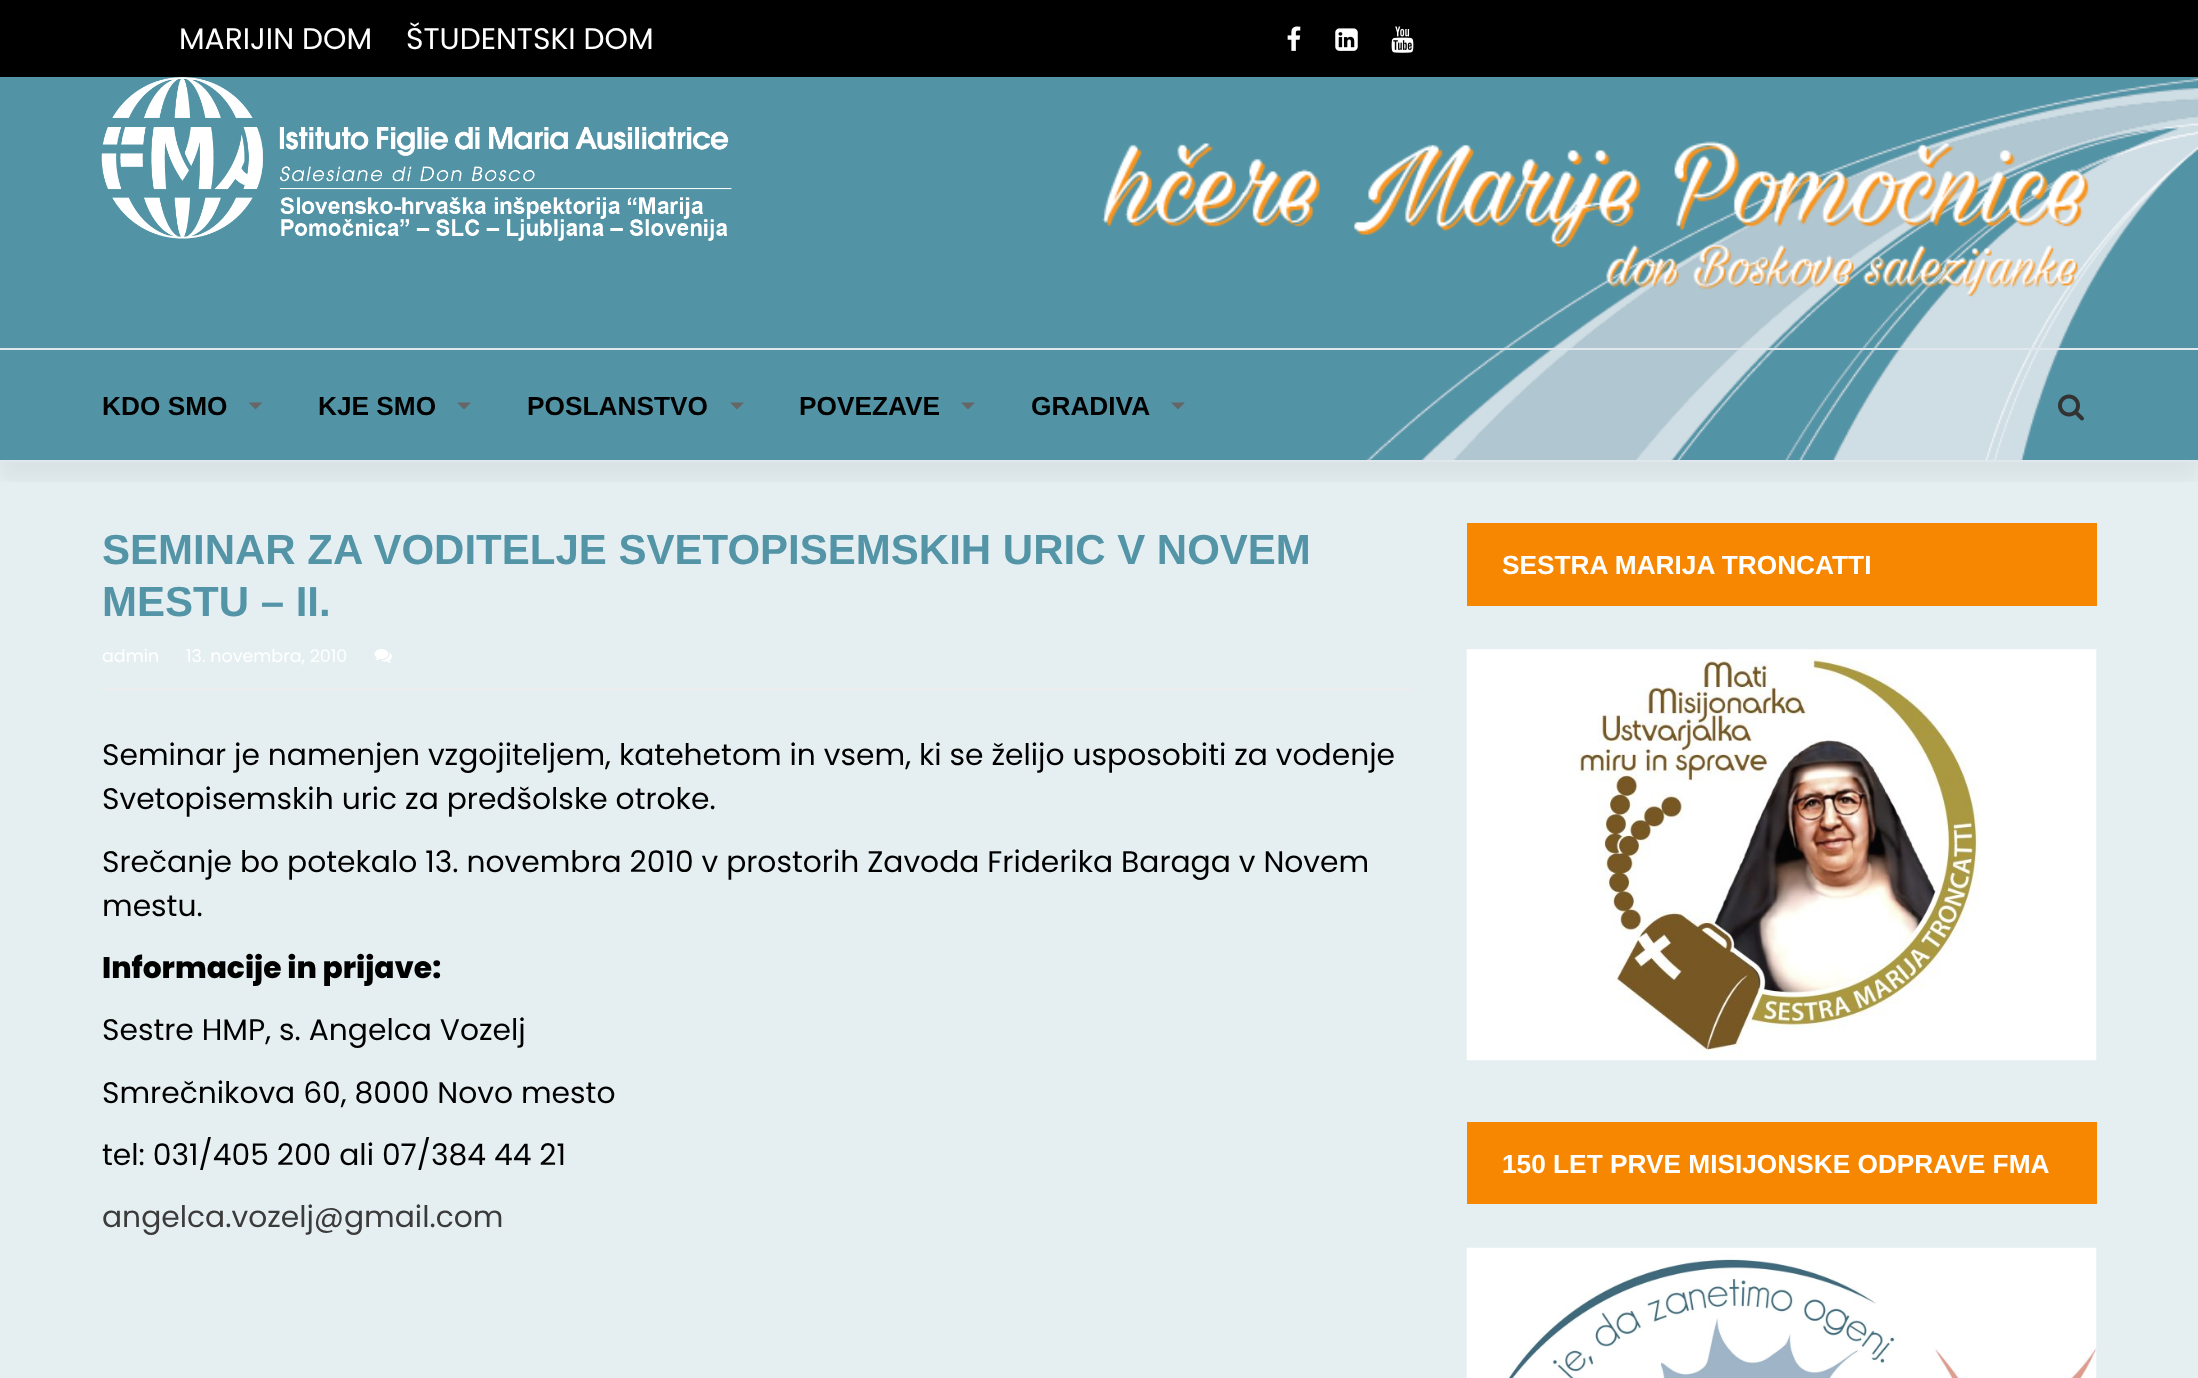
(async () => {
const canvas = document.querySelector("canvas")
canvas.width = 2198
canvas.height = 1378
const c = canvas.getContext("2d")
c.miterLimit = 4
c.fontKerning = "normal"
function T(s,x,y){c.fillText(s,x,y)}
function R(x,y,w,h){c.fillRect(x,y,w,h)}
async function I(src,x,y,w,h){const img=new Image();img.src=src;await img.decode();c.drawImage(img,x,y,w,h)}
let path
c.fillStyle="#e5eff2"
R(0,0,2198,1378)
c.fillStyle="#000"
R(0,0,2198,77)
c.font="29.75px Poppins"
c.fillStyle="#fff"
T("MARIJIN DOM",179,49)
T("ŠTUDENTSKI DOM",406,49)
await I("1.png",1287,26,14,25)
await I("2.png",1335,28,23,23)
await I("3.png",1391,26,23,27)
await I("4.png",0,77,2198,383)
await I("5.png",101,77,631,164)
await I("6.png",1102,141,988,156)
c.save()
c.beginPath()
c.rect(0,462,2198,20)
c.clip()
c.fillStyle="#0000000d"
c.filter="blur(9px)"
c.beginPath()
c.rect(0,366,2198,114)
c.fill()
c.filter="none"
c.restore()
c.fillStyle="#e1e8ed"
R(0,348,2198,2)
R(0,460,2198,2)
c.font="bold 26.25px Liberation Sans"
c.fillStyle="#000"
T("KDO SMO",102,415)
c.fillStyle="#666"
path = new Path2D("M248.5 402.5h14l-7 7z")
c.fill(path)
c.fillStyle="#000"
T("KJE SMO",318,415)
c.fillStyle="#666"
path = new Path2D("M457 402.5h14l-7 7z")
c.fill(path)
c.fillStyle="#000"
T("POSLANSTVO",527,415)
c.fillStyle="#666"
path = new Path2D("M730 402.5h14l-7 7z")
c.fill(path)
c.fillStyle="#000"
T("POVEZAVE",799,415)
c.fillStyle="#666"
path = new Path2D("M961 402.5h14l-7 7z")
c.fill(path)
c.fillStyle="#000"
T("GRADIVA",1031,415)
c.fillStyle="#666"
path = new Path2D("M1171 402.5h14l-7 7z")
c.fill(path)
await I("7.png",2058,394,26,27)
c.fillStyle="#ededed"
R(102,688,1312,2)
c.font="bold 42px Liberation Sans"
c.fillStyle="#5394a7"
T("SEMINAR ZA VODITELJE SVETOPISEMSKIH URIC V NOVEM",102,564)
T("MESTU – II.",102,616)
c.font="17.5px Poppins"
c.fillStyle="#fff"
T("admin",102,662)
T("13. novembra, 2010",186,662)
await I("8.png",374,649,18,14)
c.font="29.75px Poppins"
c.fillStyle="#000"
T("Seminar je namenjen vzgojiteljem, katehetom in vsem, ki se želijo usposobiti za vodenje",102,765)
T("Svetopisemskih uric za predšolske otroke.",102,809)
T("Srečanje bo potekalo 13. novembra 2010 v prostorih Zavoda Friderika Baraga v Novem",102,872)
T("mestu.",102,916)
c.font="800 29.75px Poppins"
T("Informacije in prijave:",102,978)
c.font="29.75px Poppins"
T("Sestre HMP, s. Angelca Vozelj",102,1040)
T("Smrečnikova 60, 8000 Novo mesto",102,1103)
T("tel: 031/405 200 ali 07/384 44 21",102,1165)
c.fillStyle="#3b3b3b"
T("angelca.vozelj@gmail.com",102,1227)
c.fillStyle="#f78700"
R(1467,523,630,83)
c.font="bold 26.25px Liberation Sans"
c.fillStyle="#fff"
T("SESTRA MARIJA TRONCATTI",1502,574)
await I("9.png",1466,649,631,412)
c.fillStyle="#f78700"
R(1467,1122,630,82)
c.fillStyle="#fff"
T("150 LET PRVE MISIJONSKE ODPRAVE FMA",1502,1173)
await I("10.png",1466,1247,631,131)
})()
